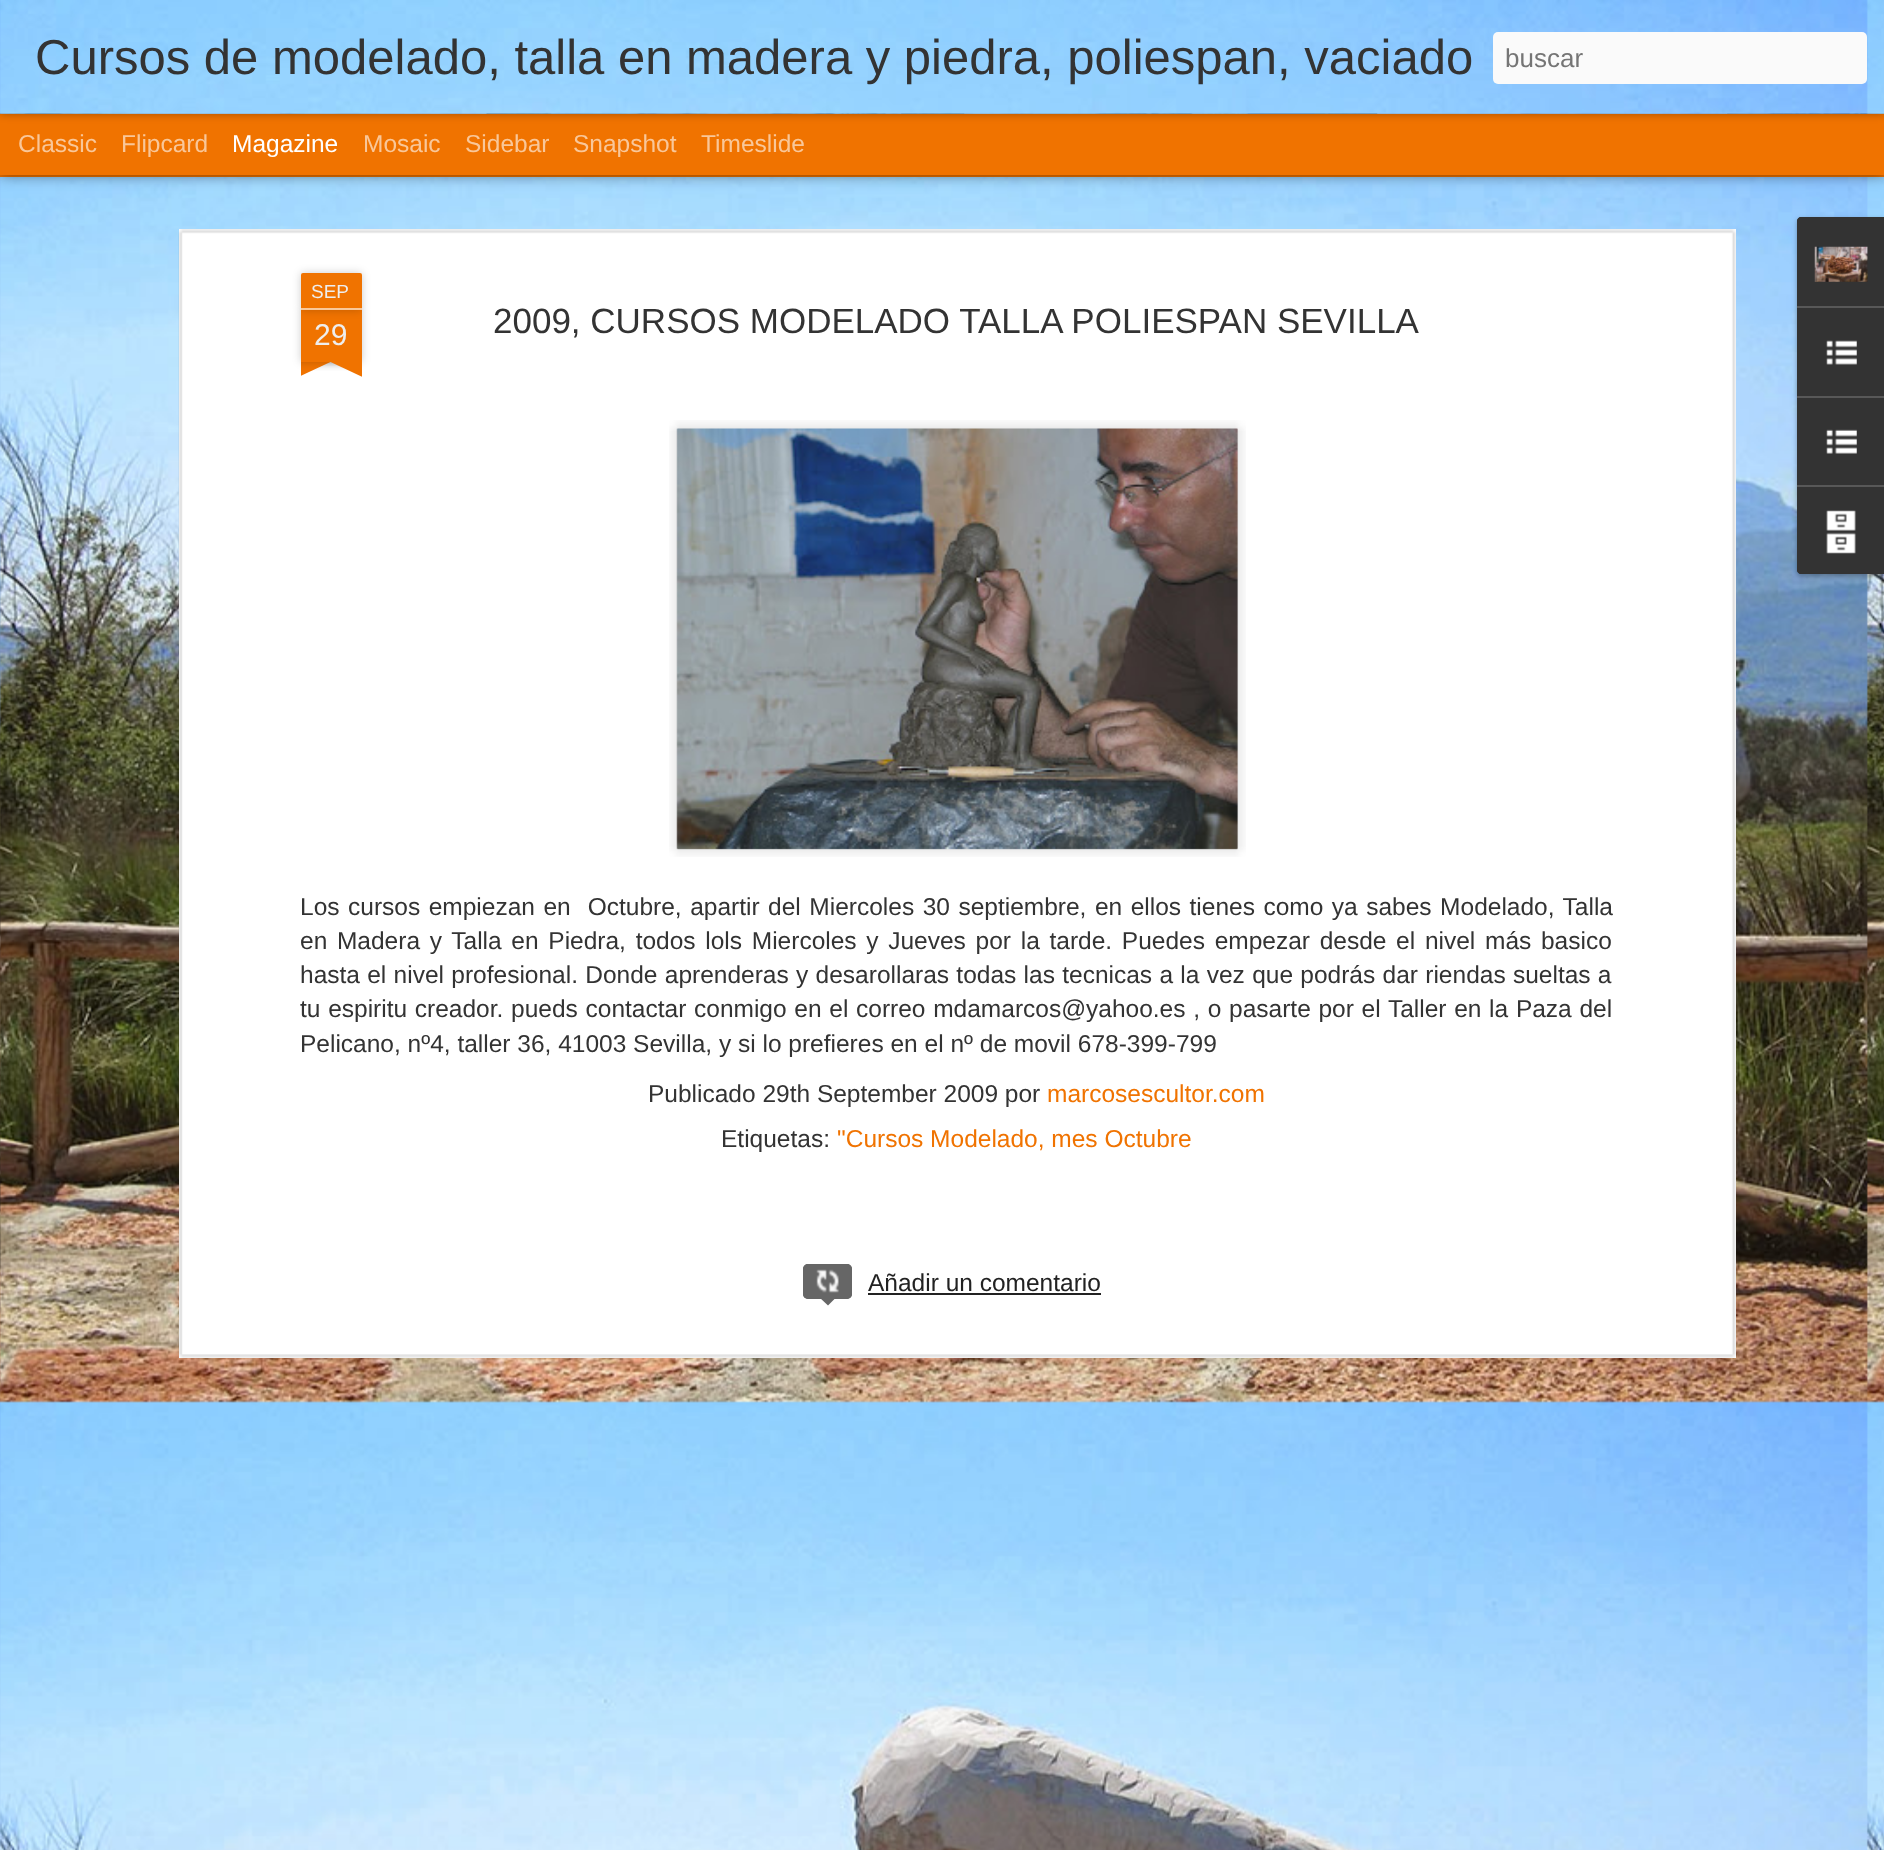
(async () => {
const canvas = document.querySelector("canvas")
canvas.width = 1884
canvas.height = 1850
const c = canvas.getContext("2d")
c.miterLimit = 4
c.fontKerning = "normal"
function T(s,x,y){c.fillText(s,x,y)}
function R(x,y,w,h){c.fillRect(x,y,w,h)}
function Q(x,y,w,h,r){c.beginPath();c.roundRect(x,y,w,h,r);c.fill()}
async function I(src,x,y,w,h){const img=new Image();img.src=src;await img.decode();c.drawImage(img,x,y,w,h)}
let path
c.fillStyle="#fff"
R(0,0,1884,1850)
await I("1.png",0,113,1884,1)
await I("3.png",94,113,1698,1)
await I("4.png",136,113,351,1)
await I("5.png",551,113,351,1)
await I("6.png",964,113,351,1)
await I("7.png",1377,113,351,1)
c.fillStyle="#f07300"
R(0,175,1884,2)
await I("8.png",0,177,1884,1673)
c.fillStyle="#00000080"
c.filter="blur(7px)"
c.beginPath()
c.rect(0,114,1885,61)
c.fill()
c.filter="none"
c.fillStyle="#f07300"
R(0,114,1884,61)
c.fillStyle="#0000004d"
c.filter="blur(4.5px)"
c.beginPath()
c.rect(0,0,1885,114)
c.fill()
c.filter="none"
await I("2.png",0,0,1884,114)
c.font="49px Liberation Sans"
c.fillStyle="#333"
T("Cursos de modelado, talla en madera y piedra, poliespan, vaciado",35,74)
c.fillStyle="#fafafa"
Q(1493,32,374,52,5)
c.font="26px Liberation Sans"
c.fillStyle="#757575"
T("buscar",1505,67)
c.font="24.5px Liberation Sans"
c.fillStyle="#f9c799"
T("Classic",18,152)
T("Flipcard",121,152)
c.fillStyle="#fff"
T("Magazine",232,152)
c.fillStyle="#f9c799"
T("Mosaic",363,152)
T("Sidebar",465,152)
T("Snapshot",573,152)
T("Timeslide",701,152)
c.fillStyle="#fff"
R(179,229,1557,1129)
await I("9.png",178,229,1558,1129)
c.fillStyle="#00000033"
c.filter="blur(4.5px)"
c.beginPath()
c.rect(301,310,61,52)
c.fill()
c.filter="none"
c.fillStyle="#f07300"
R(301,310,61,52)
c.fillStyle="#00000033"
c.filter="blur(4.5px)"
c.beginPath()
c.roundRect(301,273,61,37,2)
c.fill()
c.filter="none"
c.fillStyle="#f07300"
c.beginPath()
c.roundRect(301,273,61,37,[2,2,0,0])
c.fill()
c.fillStyle="#f9c799"
R(301,308,61,2)
c.font="19px Liberation Sans"
c.fillStyle="#eee"
T("SEP",311,298)
c.font="30px Liberation Sans"
T("29",314,345)
c.save()
c.beginPath()
c.rect(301,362,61,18)
c.clip()
c.fillStyle="#00000033"
c.filter="blur(4.5px)"
c.beginPath()
c.rect(285,345,88,17)
c.fill()
c.filter="none"
c.restore()
c.save()
c.beginPath()
c.rect(301,362,61,18)
c.clip()
c.fillStyle="#f07300"
path = new Path2D("M285 364l79-37l7 16l-79 37z")
c.fill(path)
c.restore()
c.save()
c.beginPath()
c.rect(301,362,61,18)
c.clip()
c.fillStyle="#00000033"
c.filter="blur(4.5px)"
c.beginPath()
c.rect(291,345,87,17)
c.fill()
c.filter="none"
c.restore()
c.save()
c.beginPath()
c.rect(301,362,61,18)
c.clip()
c.fillStyle="#f07300"
path = new Path2D("M297 327l80 37l-8 16l-79-37z")
c.fill(path)
c.restore()
c.font="35px Liberation Sans"
c.fillStyle="#333"
T("2009, CURSOS MODELADO TALLA POLIESPAN SEVILLA",493,333)
await I("10.png",669,420,577,437)
await I("11.png",676,428,562,422)
c.wordSpacing="1.7px"
c.font="24.5px Liberation Sans"
T("Los cursos empiezan en  Octubre, apartir del Miercoles 30 septiembre, en ellos tienes como ya sabes Modelado, Talla",300,915)
c.wordSpacing="2.9px"
T("en Madera y Talla en Piedra, todos lols Miercoles y Jueves por la tarde. Puedes empezar desde el nivel más basico",300,949)
c.wordSpacing="0.5px"
T("hasta el nivel profesional. Donde aprenderas y desarollaras todas las tecnicas a la vez que podrás dar riendas sueltas a",300,983)
c.wordSpacing="0.9px"
T("tu espiritu creador. pueds contactar conmigo en el correo mdamarcos@yahoo.es , o pasarte por el Taller en la Paza del",300,1017)
c.wordSpacing="0px"
T("Pelicano, nº4, taller 36, 41003 Sevilla, y si lo prefieres en el nº de movil 678-399-799",300,1052)
T("Publicado 29th September 2009 por",648,1102)
c.fillStyle="#f07300"
T("marcosescultor.com",1047,1102)
c.fillStyle="#333"
T("Etiquetas:",721,1147)
c.fillStyle="#f07300"
T("\"Cursos Modelado, mes Octubre",837,1147)
c.fillStyle="#666"
Q(803,1264,49,35,5)
await I("12.png",816,1269,23,24)
c.beginPath()
c.roundRect(804,1265,47,33,4)
c.strokeStyle="#666"
c.lineWidth=2
c.stroke()
path = new Path2D("M819 1297h17.5l-8.5 8.5z")
c.fill(path)
c.fillStyle="#222"
T("Añadir un comentario",868,1291)
R(868,1293,233,2)
c.fillStyle="#0000004d"
c.filter="blur(2.5px)"
c.beginPath()
c.roundRect(1797,219,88,357,4)
c.fill()
c.filter="none"
c.fillStyle="#333"
path = new Path2D("M1801 217h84v357h-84c-2 0-4-2-4-4v-349c0-2 2-4 4-4z")
c.fill(path)
path = new Path2D("M1801 217h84v89h-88v-85c0-2 2-4 4-4z")
c.fill(path)
await I("13.png",1814,246,54,36)
c.fillStyle="#585858"
R(1797,306,87,2)
await I("14.png",1826,340,31,25)
R(1797,396,87,2)
await I("15.png",1826,429,31,25)
c.fillStyle="#333"
path = new Path2D("M1797 485h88v89h-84c-2 0-4-2-4-4z")
c.fill(path)
c.fillStyle="#585858"
R(1797,485,87,2)
await I("16.png",1826,510,30,44)
})()
